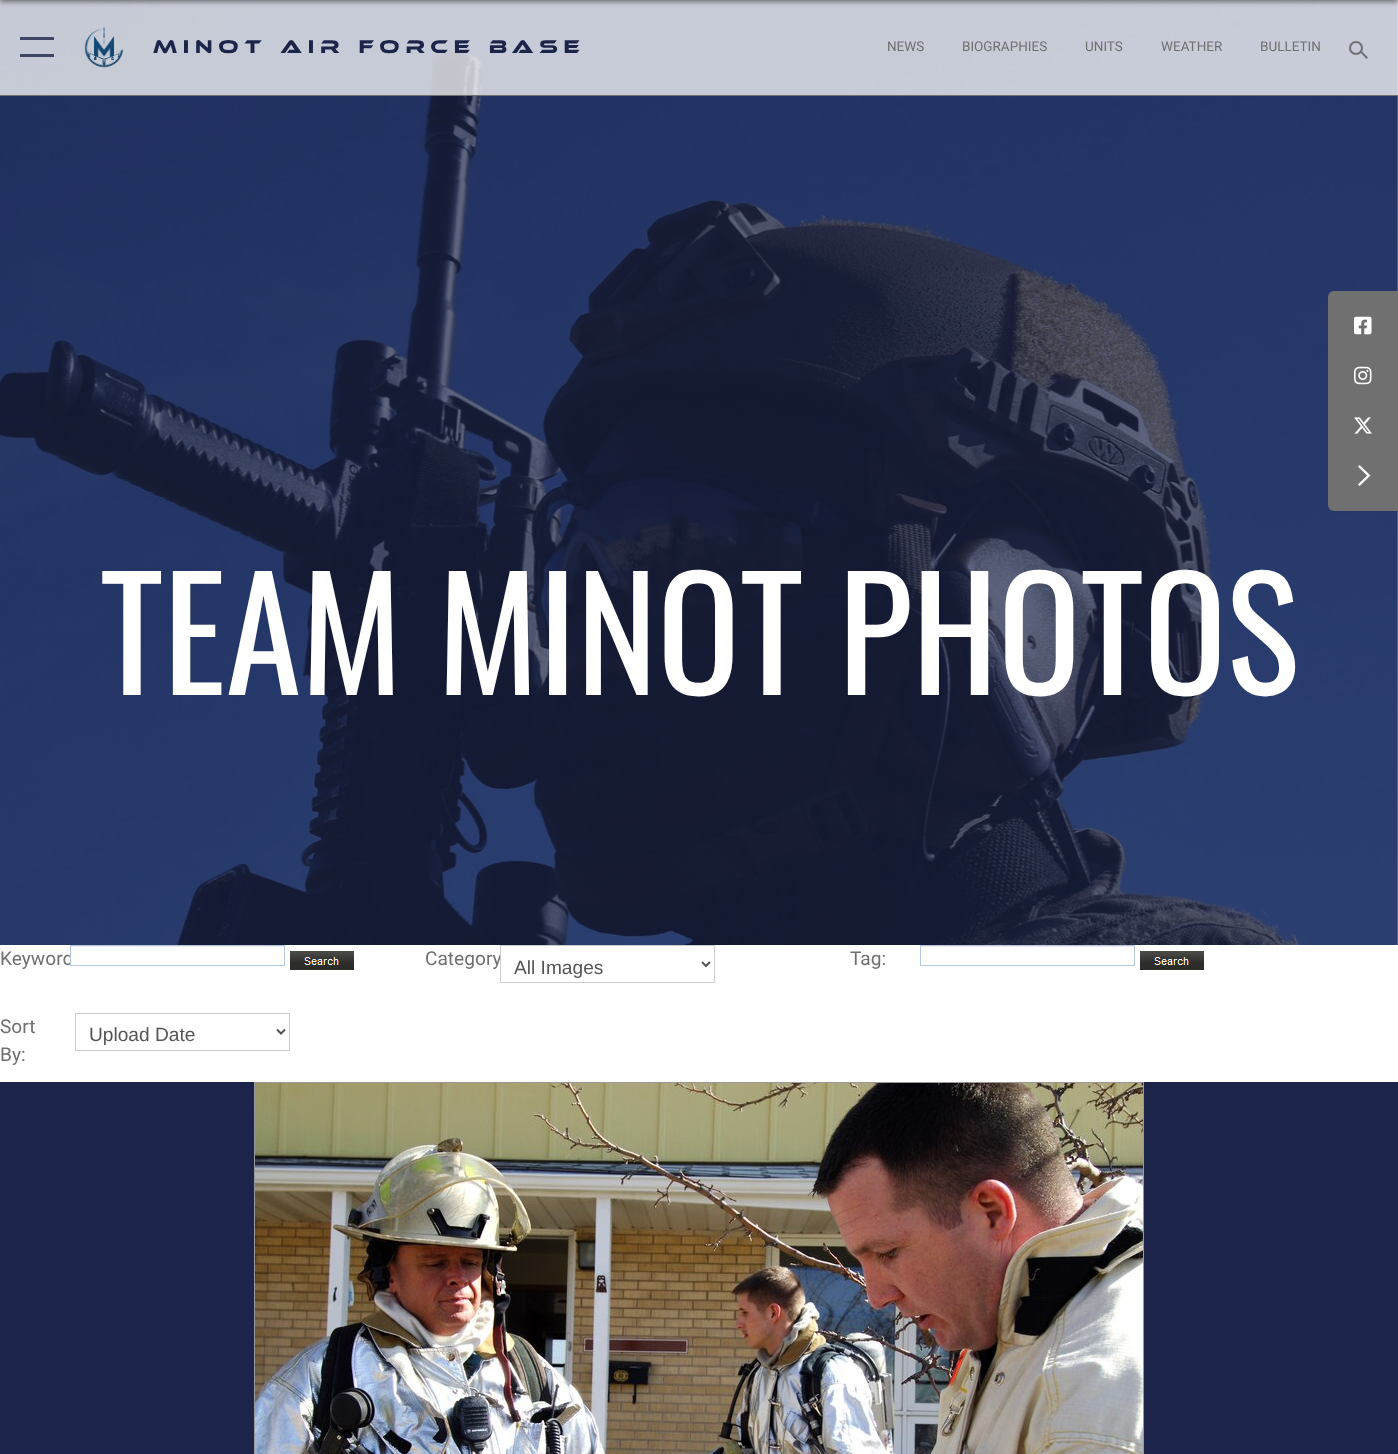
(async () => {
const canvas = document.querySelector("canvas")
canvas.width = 1398
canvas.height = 1454
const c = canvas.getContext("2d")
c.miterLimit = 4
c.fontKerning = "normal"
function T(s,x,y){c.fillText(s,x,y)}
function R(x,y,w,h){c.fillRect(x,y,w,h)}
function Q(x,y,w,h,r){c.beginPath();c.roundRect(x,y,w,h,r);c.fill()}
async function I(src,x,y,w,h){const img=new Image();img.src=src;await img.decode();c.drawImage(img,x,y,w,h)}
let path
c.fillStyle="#fff"
R(0,0,1398,1454)
await I("6.png",0,0,1398,945)
c.fillStyle="#ffffffbf"
R(0,0,1398,95)
c.fillStyle="#14141680"
c.filter="blur(2.5px)"
c.beginPath()
c.rect(0,-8,1398,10)
c.fill()
c.filter="none"
c.fillStyle="#707070"
R(0,95,1398,1)
c.fillStyle="#3e4565"
Q(20,37,34,3,.5)
Q(20,54,34,3,.5)
await I("1.png",84,27,40,41)
c.letterSpacing="5.75px"
c.font="19.15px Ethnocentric"
c.fillStyle="#1c2449"
T("Minot Air Force Base",153,53)
c.letterSpacing="0px"
c.font="13.5px Roboto"
c.fillStyle="#707070"
T("NEWS",887,51)
T("BIOGRAPHIES",962,51)
T("UNITS",1085,51)
T("WEATHER",1161,51)
T("BULLETIN",1260,51)
c.beginPath()
c.arc(1356,48,6,0,7)
c.strokeStyle="#707070"
c.lineWidth=2
c.stroke()
path = new Path2D("M1361 50.5l7 7l-1.5 1.5l-7-7.5z")
c.fill(path)
c.beginPath()
c.roundRect(1328,291,70,220,[6,0,0,6])
c.fill()
await I("2.png",1354,316,18,19)
await I("3.png",1354,366,18,19)
await I("4.png",1354,417,18,17)
await I("5.png",1358,465,13,21)
c.font="153.25px Oswald"
c.fillStyle="#fff"
T("TEAM MINOT PHOTOS",100,695)
c.font="19.15px Roboto"
c.fillStyle="#707070"
T("Keyword",0,965)
c.fillStyle="#fff"
R(71,950,1,15)
c.fillStyle="#ececec"
R(71,946,213,1)
c.strokeStyle="#b5c7e3"
c.lineWidth=1
c.strokeRect(70.5,945.5,214,20)
await I("7.png",290,951,64,19)
c.fillStyle="#707070"
T("Category",425,965)
c.fillStyle="#fff"
R(501,954,1,2)
c.strokeStyle="#ccc"
c.strokeRect(500.5,945.5,214,37)
path = new Path2D("M702 962l4 4l4-4")
c.strokeStyle="#555"
c.lineWidth=2
c.stroke(path)
c.font="19.15px Liberation Sans"
c.fillStyle="#555"
T("All Images",514,974)
c.font="19.15px Roboto"
c.fillStyle="#707070"
T("Tag:",850,965)
c.fillStyle="#ececec"
R(921,946,213,1)
c.strokeStyle="#b5c7e3"
c.lineWidth=1
c.strokeRect(920.5,945.5,214,20)
await I("7.png",1140,951,64,19)
c.fillStyle="#707070"
T("Sort",0,1033)
T("By:",0,1061)
c.strokeStyle="#ccc"
c.strokeRect(75.5,1013.5,214,37)
path = new Path2D("M277 1029.5l4 4l4-4")
c.strokeStyle="#555"
c.lineWidth=2
c.stroke(path)
c.font="19.15px Liberation Sans"
c.fillStyle="#555"
T("Upload Date",89,1041)
c.fillStyle="#1c2449"
R(0,1082,1398,372)
c.strokeStyle="#999"
c.lineWidth=1
c.strokeRect(254.5,1082.5,889,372)
await I("8.png",255,1083,888,371)
})()
